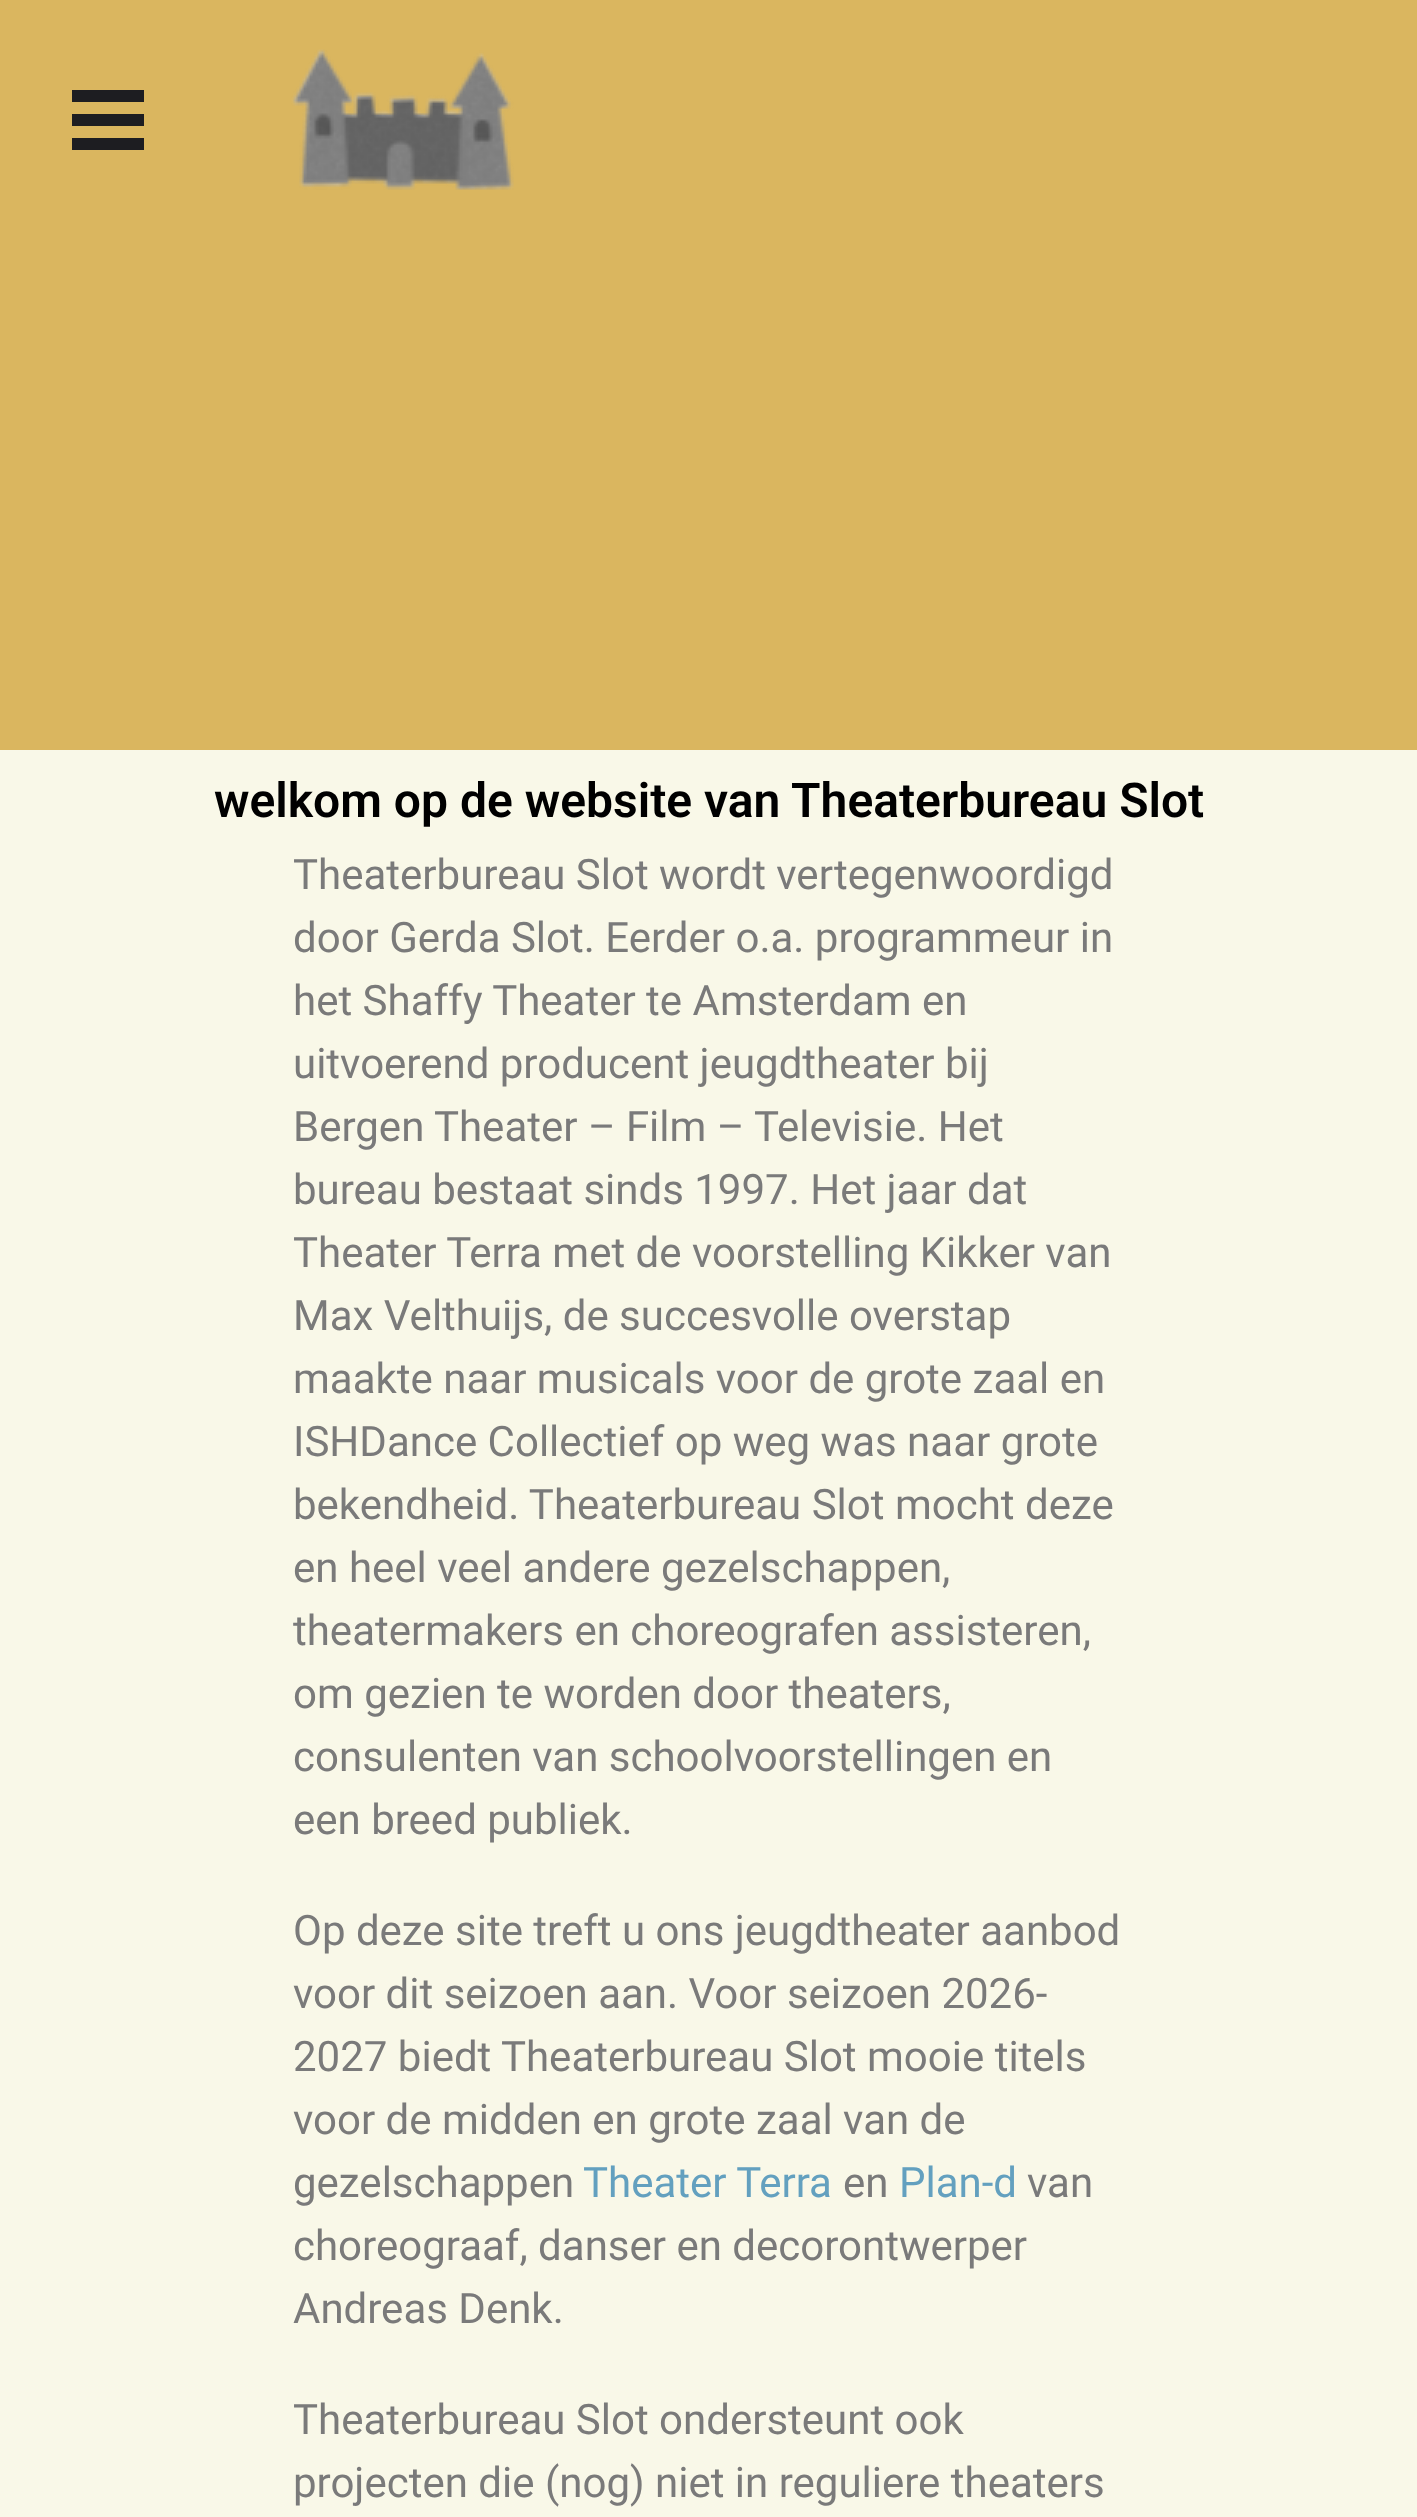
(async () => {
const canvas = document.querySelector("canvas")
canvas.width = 1417
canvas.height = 2517
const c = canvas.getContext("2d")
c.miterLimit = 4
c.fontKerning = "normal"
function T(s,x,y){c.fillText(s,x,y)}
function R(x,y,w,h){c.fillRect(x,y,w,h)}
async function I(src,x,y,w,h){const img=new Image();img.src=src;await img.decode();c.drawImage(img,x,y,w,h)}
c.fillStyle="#dab65f"
R(0,0,1417,2517)
c.fillStyle="#1d1d21"
R(72,90,72,12)
R(72,114,72,12)
R(72,138,72,12)
await I("1.png",291,49,223,141)
c.fillStyle="#f9f8e8"
R(0,750,1417,1767)
c.font="600 48px Roboto"
c.fillStyle="#000"
T("welkom op de website van Theaterbureau Slot",214,817)
c.font="42px Roboto"
c.fillStyle="#7a7a7a"
T("Theaterbureau Slot wordt vertegenwoordigd",293,889)
T("door Gerda Slot. Eerder o.a. programmeur in",293,952)
T("het Shaffy Theater te Amsterdam en",293,1015)
T("uitvoerend producent jeugdtheater bij",293,1078)
T("Bergen Theater – Film – Televisie. Het",293,1141)
T("bureau bestaat sinds 1997. Het jaar dat",293,1204)
T("Theater Terra met de voorstelling Kikker van",293,1267)
T("Max Velthuijs, de succesvolle overstap",293,1330)
T("maakte naar musicals voor de grote zaal en",293,1393)
T("ISHDance Collectief op weg was naar grote",293,1456)
T("bekendheid. Theaterbureau Slot mocht deze",293,1519)
T("en heel veel andere gezelschappen,",293,1582)
T("theatermakers en choreografen assisteren,",293,1645)
T("om gezien te worden door theaters,",293,1708)
T("consulenten van schoolvoorstellingen en",293,1771)
T("een breed publiek.",293,1834)
T("Op deze site treft u ons jeugdtheater aanbod",293,1945)
T("voor dit seizoen aan. Voor seizoen 2026-",293,2008)
T("2027 biedt Theaterbureau Slot mooie titels",293,2071)
T("voor de midden en grote zaal van de",293,2134)
T("gezelschappen",293,2197)
c.fillStyle="#63a0bf"
T("Theater Terra",583,2197)
c.fillStyle="#7a7a7a"
T("en",843,2197)
c.fillStyle="#63a0bf"
T("Plan-d",899,2197)
c.fillStyle="#7a7a7a"
T("van",1027,2197)
T("choreograaf, danser en decorontwerper",293,2260)
T("Andreas Denk.",293,2323)
T("Theaterbureau Slot ondersteunt ook",293,2434)
T("projecten die (nog) niet in reguliere theaters",293,2497)
})()
